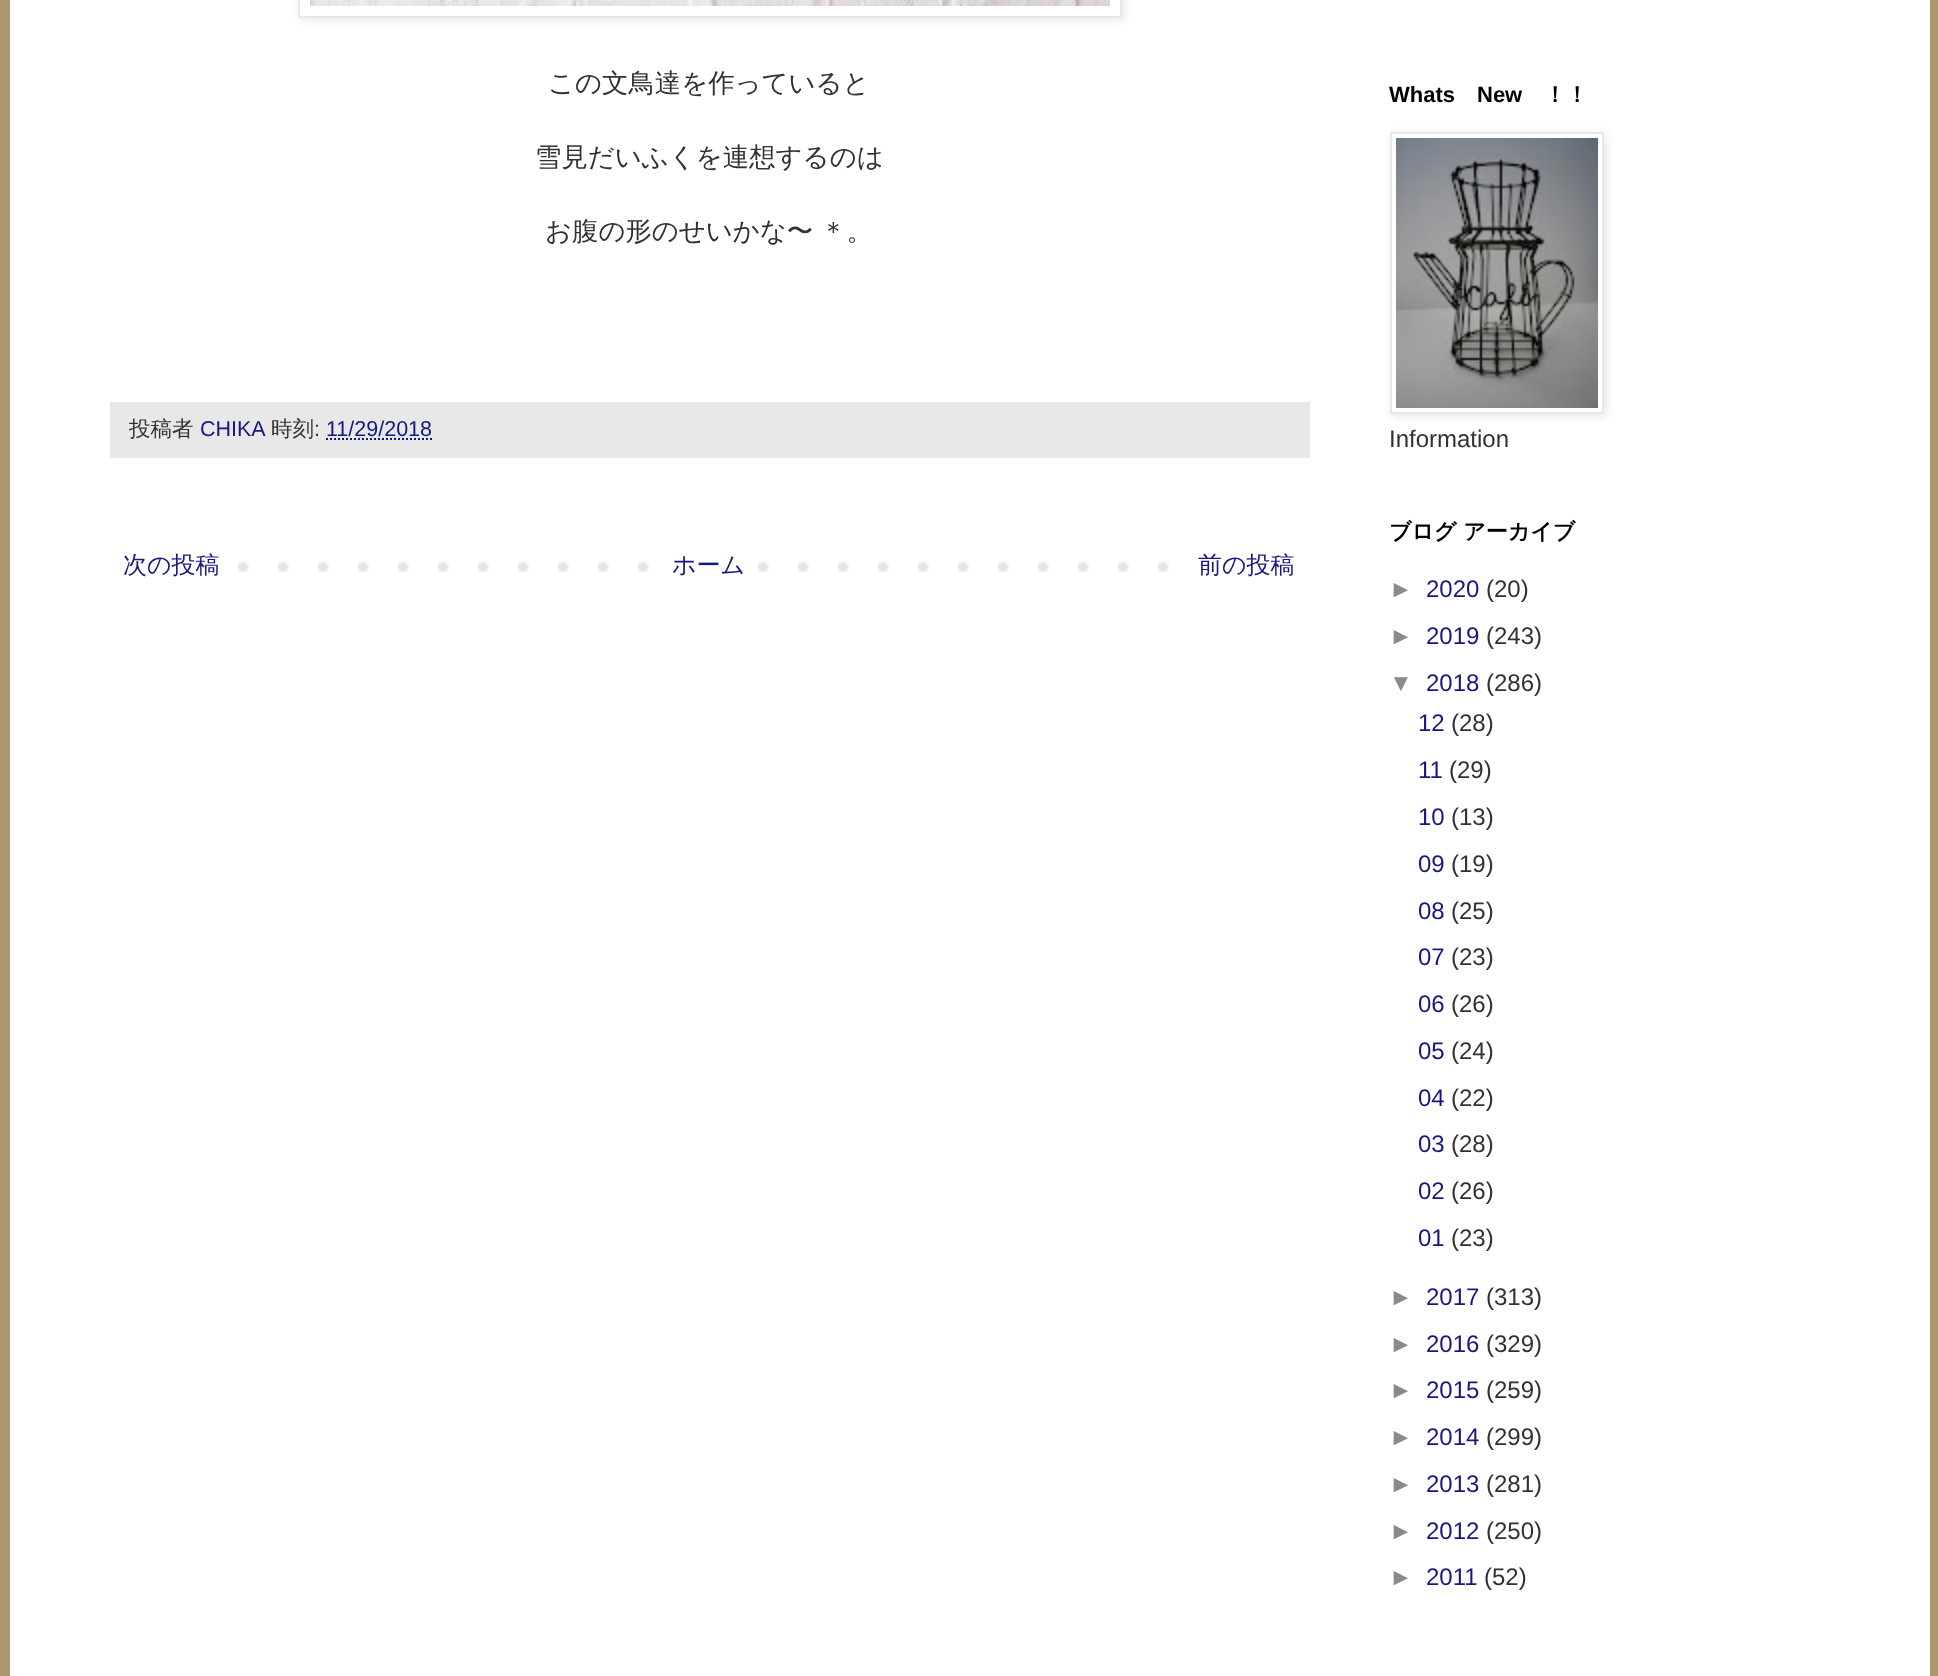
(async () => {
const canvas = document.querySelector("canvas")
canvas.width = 1938
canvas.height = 1676
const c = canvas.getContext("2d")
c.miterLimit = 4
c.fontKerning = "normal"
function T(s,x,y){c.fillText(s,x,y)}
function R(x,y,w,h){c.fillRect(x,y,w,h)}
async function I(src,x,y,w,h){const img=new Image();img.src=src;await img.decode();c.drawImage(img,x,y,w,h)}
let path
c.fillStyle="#ad966c"
R(0,0,1938,1676)
c.fillStyle="#fff"
R(10,0,1920,1676)
c.save()
path = new Path2D("M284 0h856v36h-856zm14-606h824v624h-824z")
c.clip(path,"evenodd")
c.fillStyle="#0000001a"
c.filter="blur(5px)"
c.beginPath()
c.rect(300,-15,824,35)
c.fill()
c.filter="none"
c.restore()
c.strokeStyle="#e8e8e8"
c.lineWidth=2
c.strokeRect(299,-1,822,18)
await I("1.png",310,0,800,6)
c.font="500 26.4px WenQuanYi Zen Hei"
c.fillStyle="#313131"
T("この文鳥達を作っていると",548,92)
T("雪見だいふくを連想するのは",535,166)
c.wordSpacing="-1px"
T("お腹の形のせいかな〜 ＊。",545,240)
c.fillStyle="#e8e8e8"
R(110,402,1200,56)
c.wordSpacing="0px"
c.font="500 21.5px WenQuanYi Zen Hei"
c.fillStyle="#313131"
T("投稿者",129,436)
c.font="21.5px Liberation Sans"
c.fillStyle="#16187d"
T("CHIKA",200,436)
c.font="500 21.5px WenQuanYi Zen Hei"
c.fillStyle="#313131"
T("時刻",271,436)
c.font="21.5px Liberation Sans"
T(":",314,436)
c.fillStyle="#16187d"
T("11/29/2018",326,436)
path = new Path2D("M326 439h106.5")
c.strokeStyle="#16187d"
c.setLineDash([2,2])
c.stroke(path)
await I("2.png",237,561,932,12)
c.font="500 24px WenQuanYi Zen Hei"
T("次の投稿",123,573)
c.fillStyle="#fff"
R(677,561,53,12)
c.fillStyle="#16187d"
T("ホーム",672,573)
T("前の投稿",1198,573)
c.font="bold 22px Liberation Sans"
c.fillStyle="#000"
T("Whats",1389,102)
T("New",1477,102)
c.font="bold 22px WenQuanYi Zen Hei"
T("！！",1544,102)
c.save()
path = new Path2D("M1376 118h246v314h-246zm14 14h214v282h-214z")
c.clip(path,"evenodd")
c.fillStyle="#0000001a"
c.filter="blur(5px)"
c.beginPath()
c.rect(1392,134,214,282)
c.fill()
c.filter="none"
c.restore()
c.strokeStyle="#e8e8e8"
c.setLineDash([])
c.strokeRect(1391,133,212,280)
await I("3.png",1396,138,202,270)
c.font="24px Liberation Sans"
c.fillStyle="#313131"
T("Information",1389,447)
c.font="bold 22px WenQuanYi Zen Hei"
c.fillStyle="#000"
T("ブログ アーカイブ",1389,539)
c.font="24px Liberation Sans"
c.fillStyle="#8a8a8a"
T("►",1389,597)
c.fillStyle="#16187d"
T("2020",1426,597)
c.fillStyle="#313131"
T("(20)",1486,597)
c.fillStyle="#8a8a8a"
T("►",1389,644)
c.fillStyle="#16187d"
T("2019",1426,644)
c.fillStyle="#313131"
T("(243)",1486,644)
c.fillStyle="#8a8a8a"
T("▼",1389,691)
c.fillStyle="#16187d"
T("2018",1426,691)
c.fillStyle="#313131"
T("(286)",1486,691)
c.fillStyle="#16187d"
T("12",1418,731)
c.fillStyle="#313131"
T("(28)",1451,731)
c.fillStyle="#16187d"
T("11",1418,778)
c.fillStyle="#313131"
T("(29)",1449,778)
c.fillStyle="#16187d"
T("10",1418,825)
c.fillStyle="#313131"
T("(13)",1451,825)
c.fillStyle="#16187d"
T("09",1418,872)
c.fillStyle="#313131"
T("(19)",1451,872)
c.fillStyle="#16187d"
T("08",1418,919)
c.fillStyle="#313131"
T("(25)",1451,919)
c.fillStyle="#16187d"
T("07",1418,965)
c.fillStyle="#313131"
T("(23)",1451,965)
c.fillStyle="#16187d"
T("06",1418,1012)
c.fillStyle="#313131"
T("(26)",1451,1012)
c.fillStyle="#16187d"
T("05",1418,1059)
c.fillStyle="#313131"
T("(24)",1451,1059)
c.fillStyle="#16187d"
T("04",1418,1106)
c.fillStyle="#313131"
T("(22)",1451,1106)
c.fillStyle="#16187d"
T("03",1418,1152)
c.fillStyle="#313131"
T("(28)",1451,1152)
c.fillStyle="#16187d"
T("02",1418,1199)
c.fillStyle="#313131"
T("(26)",1451,1199)
c.fillStyle="#16187d"
T("01",1418,1246)
c.fillStyle="#313131"
T("(23)",1451,1246)
c.fillStyle="#8a8a8a"
T("►",1389,1305)
c.fillStyle="#16187d"
T("2017",1426,1305)
c.fillStyle="#313131"
T("(313)",1486,1305)
c.fillStyle="#8a8a8a"
T("►",1389,1352)
c.fillStyle="#16187d"
T("2016",1426,1352)
c.fillStyle="#313131"
T("(329)",1486,1352)
c.fillStyle="#8a8a8a"
T("►",1389,1398)
c.fillStyle="#16187d"
T("2015",1426,1398)
c.fillStyle="#313131"
T("(259)",1486,1398)
c.fillStyle="#8a8a8a"
T("►",1389,1445)
c.fillStyle="#16187d"
T("2014",1426,1445)
c.fillStyle="#313131"
T("(299)",1486,1445)
c.fillStyle="#8a8a8a"
T("►",1389,1492)
c.fillStyle="#16187d"
T("2013",1426,1492)
c.fillStyle="#313131"
T("(281)",1486,1492)
c.fillStyle="#8a8a8a"
T("►",1389,1539)
c.fillStyle="#16187d"
T("2012",1426,1539)
c.fillStyle="#313131"
T("(250)",1486,1539)
c.fillStyle="#8a8a8a"
T("►",1389,1585)
c.fillStyle="#16187d"
T("2011",1426,1585)
c.fillStyle="#313131"
T("(52)",1484,1585)
})()
